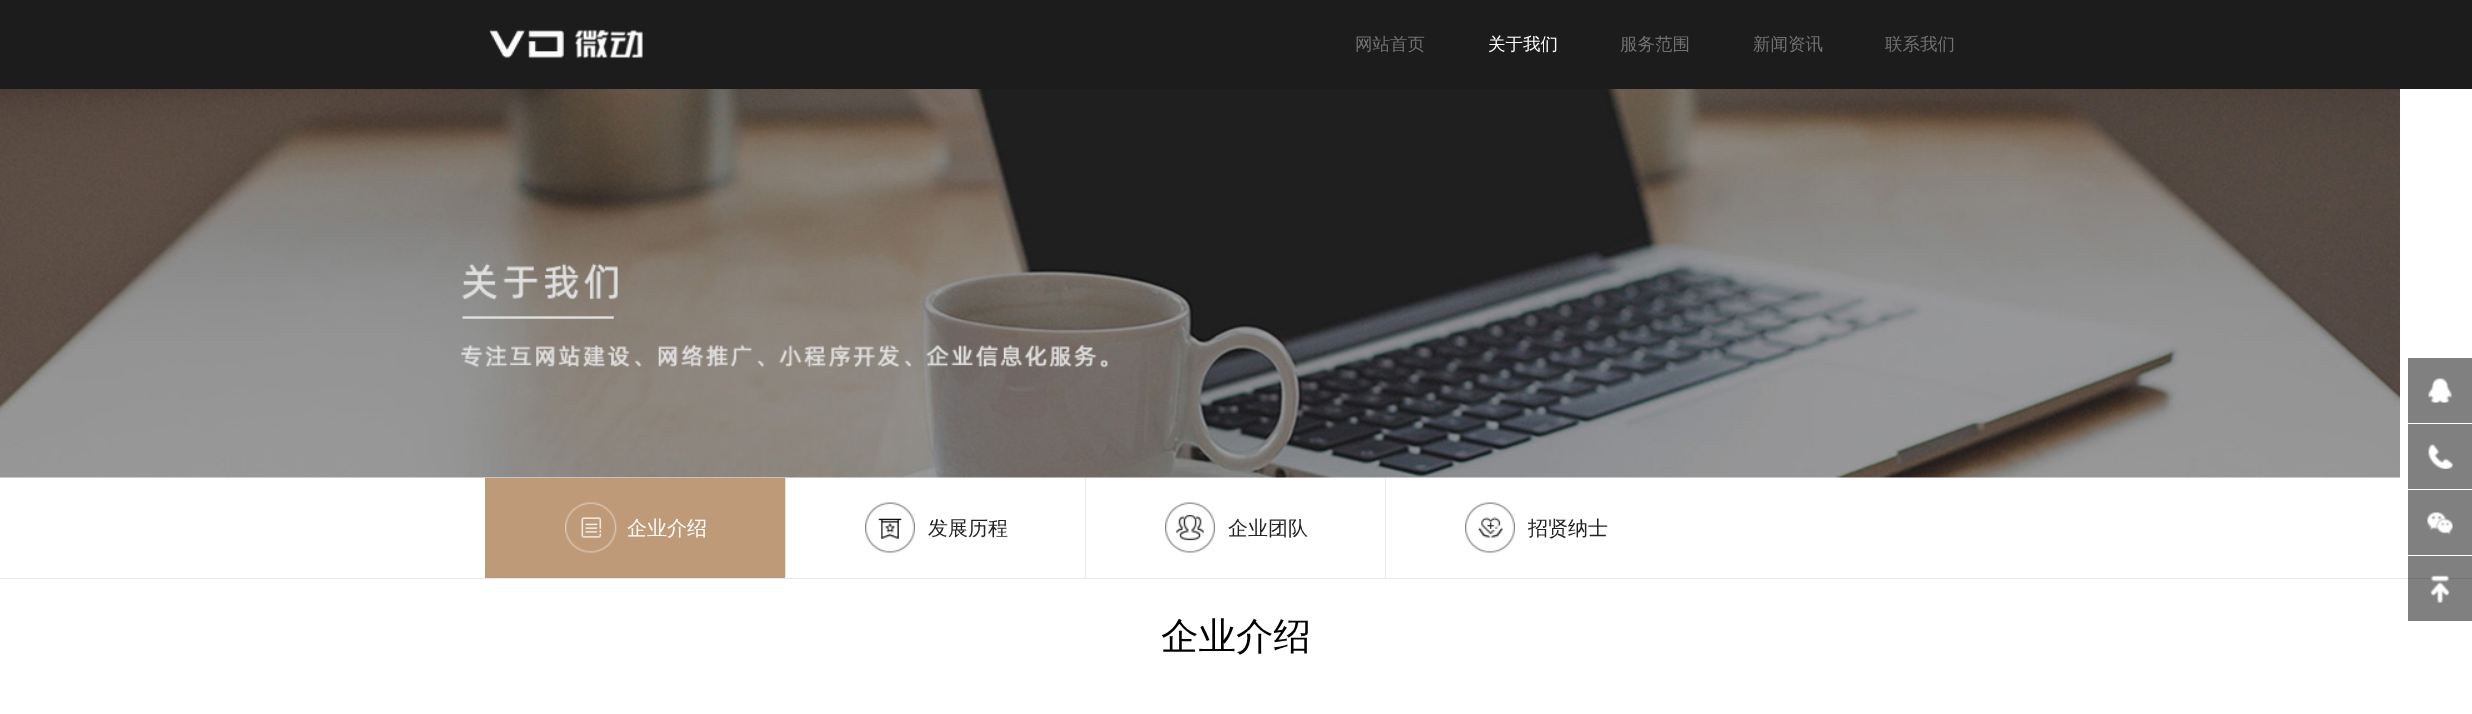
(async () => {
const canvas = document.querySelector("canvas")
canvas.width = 2472
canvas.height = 714
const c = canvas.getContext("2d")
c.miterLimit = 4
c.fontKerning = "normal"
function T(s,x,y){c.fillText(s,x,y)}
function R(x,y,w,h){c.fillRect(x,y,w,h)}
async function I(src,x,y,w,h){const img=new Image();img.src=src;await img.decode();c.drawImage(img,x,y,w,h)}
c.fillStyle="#fff"
R(0,0,2472,714)
c.fillStyle="#808080"
R(2408,556,64,65)
c.fillStyle="#1c1c1c"
R(0,0,2472,89)
await I("1.png",489,29,154,29)
c.font="500 17.5px WenQuanYi Zen Hei"
c.fillStyle="#717171"
T("网站首页",1355,50)
c.fillStyle="#fff"
T("关于我们",1488,50)
c.fillStyle="#717171"
T("服务范围",1620,50)
T("新闻资讯",1753,50)
T("联系我们",1885,50)
await I("2.png",0,89,2400,389)
c.fillStyle="#e8e8e8"
R(0,578,2408,1)
c.fillStyle="#747474"
R(2408,578,64,1)
c.fillStyle="#be9a78"
R(485,478,300,100)
await I("3.png",565,502,52,51)
c.font="500 20px WenQuanYi Zen Hei"
c.fillStyle="#fff"
T("企业介绍",627,535)
c.fillStyle="#e8e8e8"
R(785,478,1,100)
await I("4.png",865,502,50,51)
c.fillStyle="#222"
T("发展历程",928,535)
c.fillStyle="#e8e8e8"
R(1085,478,1,100)
await I("5.png",1165,502,50,51)
c.fillStyle="#222"
T("企业团队",1228,535)
c.fillStyle="#e8e8e8"
R(1385,478,1,100)
await I("6.png",1465,502,50,51)
c.fillStyle="#222"
T("招贤纳士",1528,535)
c.font="500 37.5px WenQuanYi Zen Hei"
c.fillStyle="#000"
T("企业介绍",1161,649)
c.fillStyle="#808080"
R(2408,358,64,65)
await I("7.png",2428,378,24,25)
R(2408,424,64,65)
await I("8.png",2428,444,25,25)
R(2408,490,64,65)
await I("9.png",2427,512,26,23)
await I("10.png",2430,575,20,28)
})()
